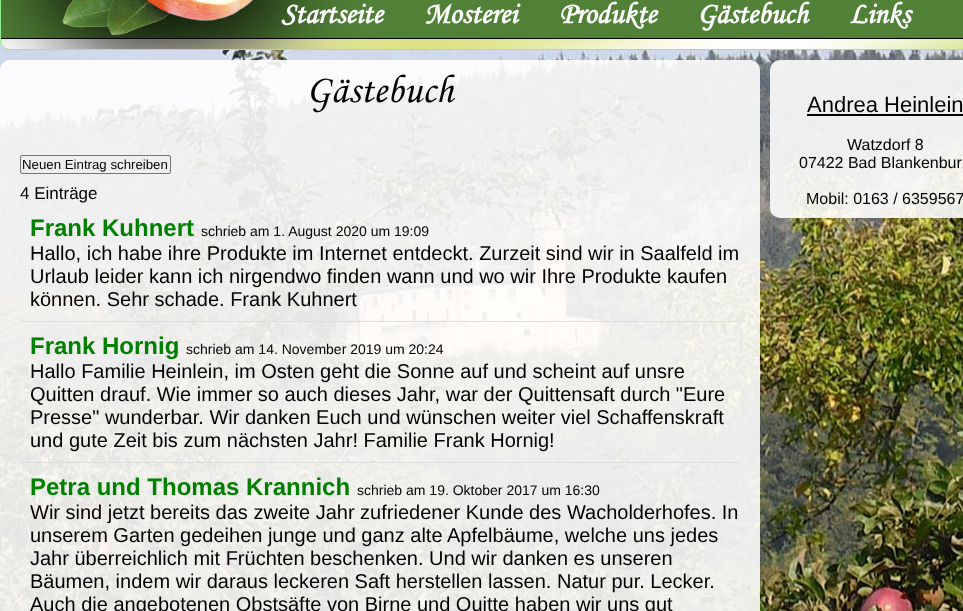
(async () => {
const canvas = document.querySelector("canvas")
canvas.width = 963
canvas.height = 611
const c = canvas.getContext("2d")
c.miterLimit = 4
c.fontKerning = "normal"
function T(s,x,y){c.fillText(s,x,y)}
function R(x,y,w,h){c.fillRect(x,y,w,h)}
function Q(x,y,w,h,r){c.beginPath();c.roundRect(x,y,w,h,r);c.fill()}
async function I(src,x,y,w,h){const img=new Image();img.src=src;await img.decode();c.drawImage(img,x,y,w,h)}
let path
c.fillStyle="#fff"
R(0,0,963,611)
await I("1.png",0,40,963,571)
await I("2.png",0,0,963,50)
c.beginPath()
c.roundRect(.5,-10.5,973,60,9.5)
c.strokeStyle="#90ee90"
c.stroke()
c.font="italic bold 30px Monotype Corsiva"
T("Startseite",281,23)
T("Mosterei",424,23)
T("Produkte",559,23)
T("Gästebuch",697,23)
T("Links",849,23)
c.fillStyle="#ffffffe3"
path = new Path2D("M10 60h740c5.5 0 10 4.5 10 10v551h-760v-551c0-5.5 4.5-10 10-10z")
c.fill(path)
c.font="italic 40px Monotype Corsiva"
c.fillStyle="#000"
T("Gästebuch",306,102)
c.fillStyle="#efefef"
c.beginPath()
c.roundRect(20.5,155.5,150,18,1.5)
c.fill()
c.strokeStyle="#767676"
c.stroke()
c.font="13.25px Liberation Sans"
c.fillStyle="#000"
T("Neuen Eintrag schreiben",22,169)
c.font="17px Liberation Sans"
T("4 Einträge",20,199)
c.font="bold 24px Liberation Sans"
c.fillStyle="#008000"
T("Frank Kuhnert",30,236)
c.font="14px Liberation Sans"
c.fillStyle="#000"
T("schrieb am 1. August 2020 um 19:09",201,236)
c.font="20px Liberation Sans"
T("Hallo, ich habe ihre Produkte im Internet entdeckt. Zurzeit sind wir in Saalfeld im",30,260)
T("Urlaub leider kann ich nirgendwo finden wann und wo wir Ihre Produkte kaufen",30,283)
T("können. Sehr schade. Frank Kuhnert",30,306)
c.fillStyle="#ddd"
R(20,321,720,1)
c.font="bold 24px Liberation Sans"
c.fillStyle="#008000"
T("Frank Hornig",30,354)
c.font="14px Liberation Sans"
c.fillStyle="#000"
T("schrieb am 14. November 2019 um 20:24",186,354)
c.font="20px Liberation Sans"
T("Hallo Familie Heinlein, im Osten geht die Sonne auf und scheint auf unsre",30,378)
T("Quitten drauf. Wie immer so auch dieses Jahr, war der Quittensaft durch \"Eure",30,401)
T("Presse\" wunderbar. Wir danken Euch und wünschen weiter viel Schaffenskraft",30,424)
T("und gute Zeit bis zum nächsten Jahr! Familie Frank Hornig!",30,447)
c.fillStyle="#ddd"
R(20,462,720,1)
c.font="bold 24px Liberation Sans"
c.fillStyle="#008000"
T("Petra und Thomas Krannich",30,495)
c.font="14px Liberation Sans"
c.fillStyle="#000"
T("schrieb am 19. Oktober 2017 um 16:30",357,495)
c.font="20px Liberation Sans"
T("Wir sind jetzt bereits das zweite Jahr zufriedener Kunde des Wacholderhofes. In",30,519)
T("unserem Garten gedeihen junge und ganz alte Apfelbäume, welche uns jedes",30,542)
T("Jahr überreichlich mit Früchten beschenken. Und wir danken es unseren",30,565)
T("Bäumen, indem wir daraus leckeren Saft herstellen lassen. Natur pur. Lecker.",30,588)
T("Auch die angebotenen Obstsäfte von Birne und Quitte haben wir uns gut",30,611)
c.fillStyle="#ffffffe3"
Q(770,60,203,158,10)
c.font="22px Liberation Sans"
c.fillStyle="#000"
T("Andrea Heinlein",807,112)
R(807,114,156,2)
c.font="16px Liberation Sans"
T("Watzdorf 8",847,150)
T("07422 Bad Blankenbur",799,168)
T("Mobil: 0163 / 6359567",806,204)
})()
